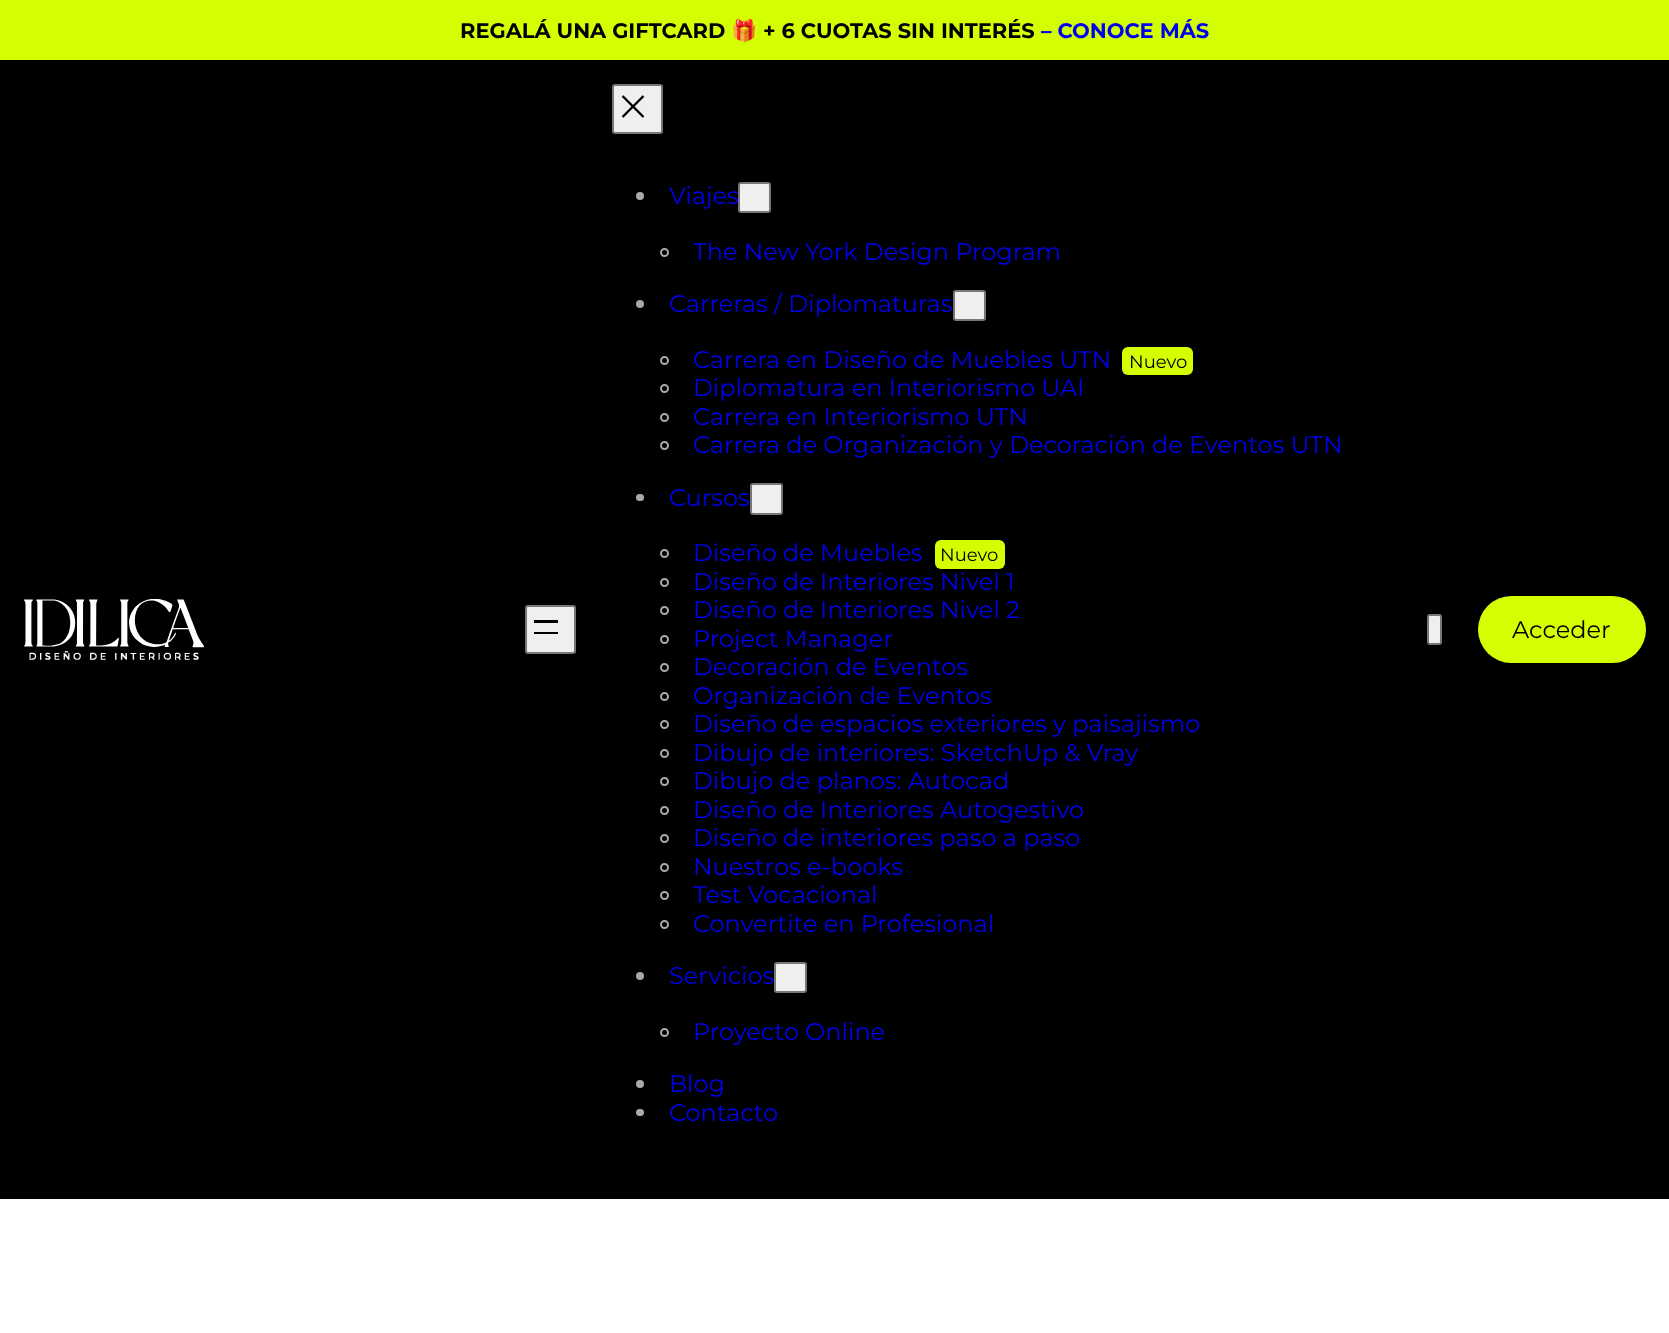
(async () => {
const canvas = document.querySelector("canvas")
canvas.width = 1669
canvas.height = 1333
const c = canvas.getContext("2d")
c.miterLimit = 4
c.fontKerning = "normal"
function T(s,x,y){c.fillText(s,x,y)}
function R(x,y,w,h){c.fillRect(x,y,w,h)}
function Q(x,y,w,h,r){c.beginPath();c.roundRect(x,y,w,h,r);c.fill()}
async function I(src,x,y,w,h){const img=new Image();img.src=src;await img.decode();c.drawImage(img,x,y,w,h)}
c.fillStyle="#fff"
R(0,0,1669,1333)
c.fillStyle="#d4ff03"
R(0,0,1669,60)
c.font="bold 21px Montserrat"
c.fillStyle="#000"
T("REGALÁ UNA GIFTCARD",460,38)
c.font="bold 21px Noto Color Emoji"
T("🎁",731,38)
c.font="bold 21px Montserrat"
T("+ 6 CUOTAS SIN INTERÉS",763,38)
c.fillStyle="#00e"
T("– CONOCE MÁS",1041,38)
c.fillStyle="#000"
R(0,60,1669,1139)
await I("1.png",24,599,180,61)
c.fillStyle="#efefef"
c.beginPath()
c.roundRect(526,606,49,47,2)
c.fill()
c.strokeStyle="#767676"
c.lineWidth=2
c.stroke()
c.fillStyle="#000"
R(534,620,24,3)
R(534,632,24,2)
c.fillStyle="#efefef"
c.beginPath()
c.roundRect(613,85,49,48,2)
c.fill()
c.stroke()
await I("2.png",621,95,24,23)
c.fillStyle="#aaa"
c.beginPath()
c.arc(640,196,4,0,7)
c.fill()
c.font="24px Montserrat"
c.fillStyle="#00e"
T("Viajes",669,204)
c.fillStyle="#efefef"
c.beginPath()
c.roundRect(739,183,31,29,2)
c.fill()
c.stroke()
c.beginPath()
c.arc(664.5,252.5,3.5,0,7)
c.strokeStyle="#aaa"
c.stroke()
c.fillStyle="#00e"
T("The New York Design Program",693,260)
c.fillStyle="#aaa"
c.beginPath()
c.arc(640,304,4,0,7)
c.fill()
c.fillStyle="#00e"
T("Carreras / Diplomaturas",669,312)
c.fillStyle="#efefef"
c.beginPath()
c.roundRect(954,291,31,29,2)
c.fill()
c.strokeStyle="#767676"
c.stroke()
c.beginPath()
c.arc(664.5,360.5,3.5,0,7)
c.strokeStyle="#aaa"
c.stroke()
c.fillStyle="#00e"
T("Carrera en Diseño de Muebles UTN",693,368)
c.fillStyle="#d4ff03"
Q(1122,347,71,28,6)
c.font="18px Montserrat"
c.fillStyle="#000"
T("Nuevo",1129,368)
c.beginPath()
c.arc(664.5,388.5,3.5,0,7)
c.stroke()
c.font="24px Montserrat"
c.fillStyle="#00e"
T("Diplomatura en Interiorismo UAI",693,396)
c.beginPath()
c.arc(664.5,417.5,3.5,0,7)
c.stroke()
T("Carrera en Interiorismo UTN",693,425)
c.beginPath()
c.arc(664.5,445.5,3.5,0,7)
c.stroke()
T("Carrera de Organización y Decoración de Eventos UTN",693,453)
c.fillStyle="#aaa"
Q(636,494,8,7,3.5)
c.fillStyle="#00e"
T("Cursos",669,506)
c.fillStyle="#efefef"
c.beginPath()
c.roundRect(751,484,31,30,2)
c.fill()
c.strokeStyle="#767676"
c.stroke()
c.beginPath()
c.arc(664.5,553.5,3.5,0,7)
c.strokeStyle="#aaa"
c.stroke()
c.fillStyle="#00e"
T("Diseño de Muebles",693,561)
c.fillStyle="#d4ff03"
Q(935,540,70,29,6)
c.font="18px Montserrat"
c.fillStyle="#000"
T("Nuevo",940,561)
c.beginPath()
c.arc(664.5,582.5,3.5,0,7)
c.stroke()
c.font="24px Montserrat"
c.fillStyle="#00e"
T("Diseño de Interiores Nivel 1",693,590)
c.beginPath()
c.arc(664.5,610.5,3.5,0,7)
c.stroke()
T("Diseño de Interiores Nivel 2",693,618)
c.beginPath()
c.arc(664.5,639.5,3.5,0,7)
c.stroke()
T("Project Manager",693,647)
c.beginPath()
c.arc(664.5,667.5,3.5,0,7)
c.stroke()
T("Decoración de Eventos",693,675)
c.beginPath()
c.arc(664.5,696.5,3.5,0,7)
c.stroke()
T("Organización de Eventos",693,704)
c.beginPath()
c.arc(664.5,724.5,3.5,0,7)
c.stroke()
T("Diseño de espacios exteriores y paisajismo",693,732)
c.beginPath()
c.arc(664.5,753.5,3.5,0,7)
c.stroke()
T("Dibujo de interiores: SketchUp & Vray",693,761)
c.beginPath()
c.arc(664.5,781.5,3.5,0,7)
c.stroke()
T("Dibujo de planos: Autocad",693,789)
c.beginPath()
c.arc(664.5,810.5,3.5,0,7)
c.stroke()
T("Diseño de Interiores Autogestivo",693,818)
c.beginPath()
c.arc(664.5,838.5,3.5,0,7)
c.stroke()
T("Diseño de interiores paso a paso",693,846)
c.beginPath()
c.arc(664.5,867.5,3.5,0,7)
c.stroke()
T("Nuestros e-books",693,875)
c.beginPath()
c.arc(664.5,895.5,3.5,0,7)
c.stroke()
T("Test Vocacional",693,903)
c.beginPath()
c.arc(664.5,924.5,3.5,0,7)
c.stroke()
T("Convertite en Profesional",693,932)
c.fillStyle="#aaa"
c.beginPath()
c.arc(640,976,4,0,7)
c.fill()
c.fillStyle="#00e"
T("Servicios",669,984)
c.fillStyle="#efefef"
c.beginPath()
c.roundRect(775,963,31,29,2)
c.fill()
c.strokeStyle="#767676"
c.stroke()
c.beginPath()
c.arc(664.5,1032.5,3.5,0,7)
c.strokeStyle="#aaa"
c.stroke()
c.fillStyle="#00e"
T("Proyecto Online",693,1040)
c.fillStyle="#aaa"
c.beginPath()
c.arc(640,1084,4,0,7)
c.fill()
c.fillStyle="#00e"
T("Blog",669,1092)
c.fillStyle="#aaa"
Q(636,1109,8,7,3.5)
c.fillStyle="#00e"
T("Contacto",669,1121)
c.fillStyle="#efefef"
c.beginPath()
c.roundRect(1428,615,13,29,2)
c.fill()
c.strokeStyle="#767676"
c.stroke()
c.fillStyle="#d4ff03"
Q(1478,596,168,67,33.5)
c.fillStyle="#000"
T("Acceder",1512,638)
})()
